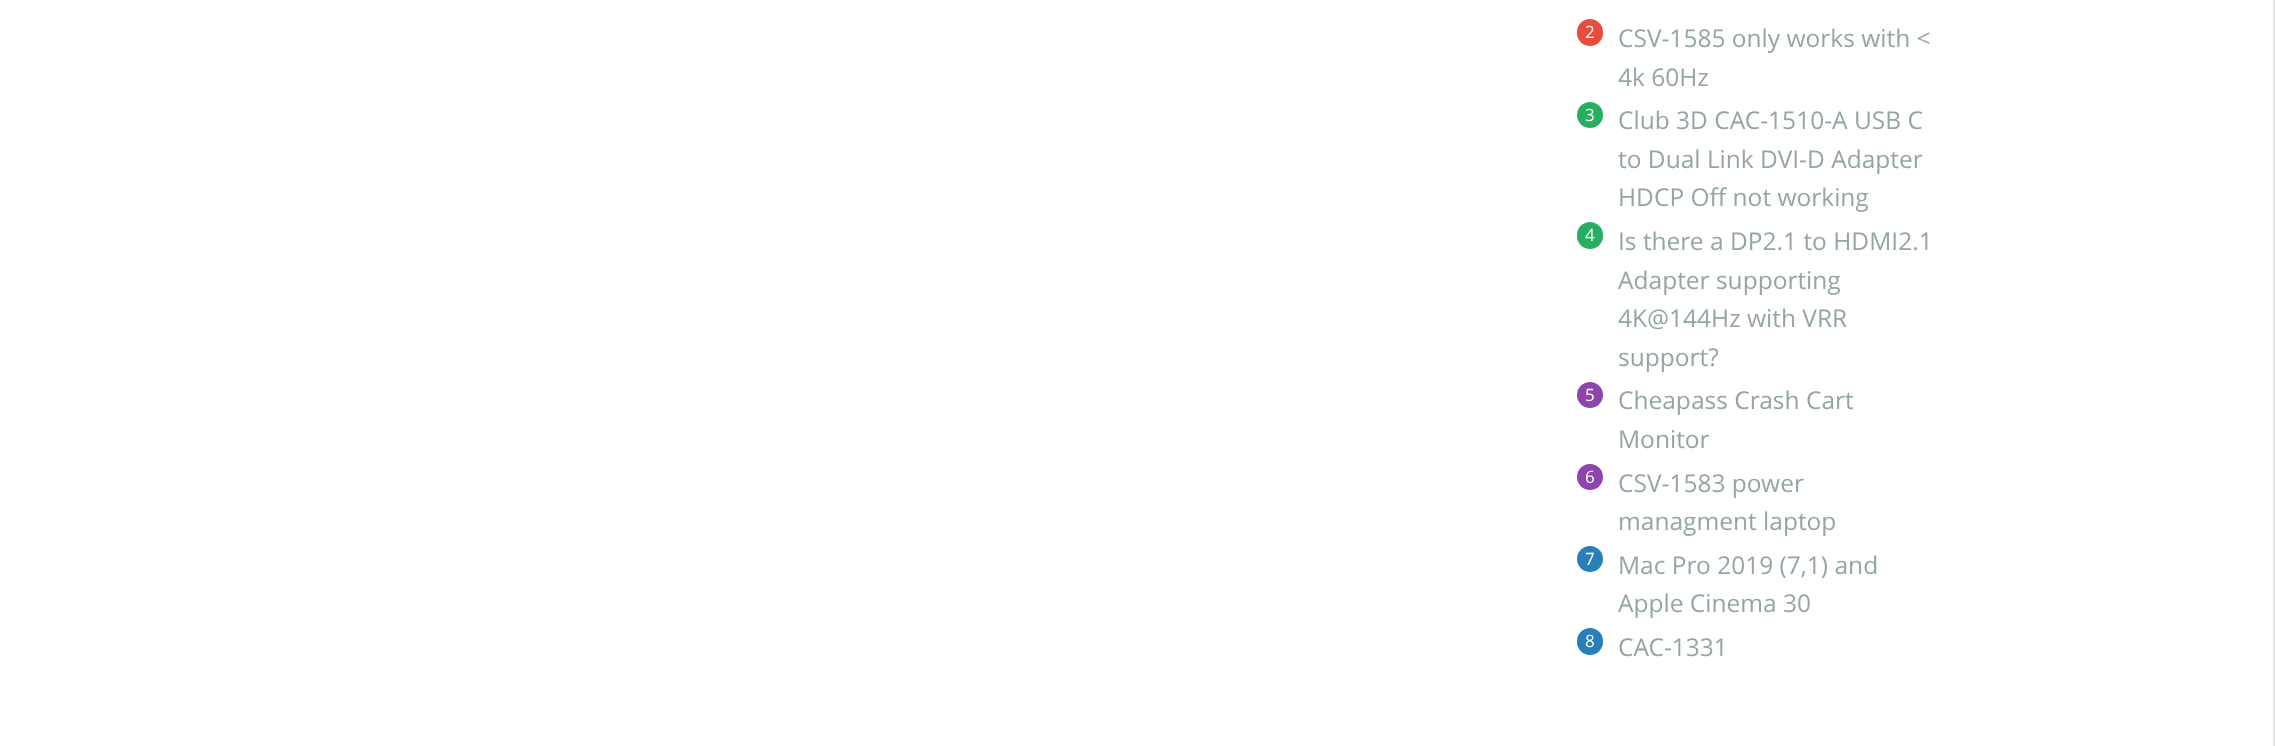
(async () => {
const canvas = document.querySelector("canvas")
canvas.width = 2275
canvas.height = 746
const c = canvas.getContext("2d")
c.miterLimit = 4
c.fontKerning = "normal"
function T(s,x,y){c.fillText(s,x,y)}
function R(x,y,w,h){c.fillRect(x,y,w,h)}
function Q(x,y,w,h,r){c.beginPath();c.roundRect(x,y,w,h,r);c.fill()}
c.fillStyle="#fff"
R(0,0,2275,746)
c.fillStyle="#e5e5e5"
R(2273,0,2,746)
c.fillStyle="#e74c3c"
Q(1577,19,26,27,13)
c.font="17px Open Sans"
c.fillStyle="#fff"
T("2",1585,38)
c.font="24.5px Open Sans"
c.fillStyle="#95a5a6"
T("CSV-1585 only works with <",1618,47)
T("4k 60Hz",1618,86)
c.fillStyle="#27ae60"
c.beginPath()
c.arc(1590,115,13,0,7)
c.fill()
c.font="17px Open Sans"
c.fillStyle="#fff"
T("3",1585,121)
c.font="24.5px Open Sans"
c.fillStyle="#95a5a6"
T("Club 3D CAC-1510-A USB C",1618,129)
T("to Dual Link DVI-D Adapter",1618,168)
T("HDCP Off not working",1618,206)
c.fillStyle="#27ae60"
Q(1577,222,26,27,13)
c.font="17px Open Sans"
c.fillStyle="#fff"
T("4",1585,241)
c.font="24.5px Open Sans"
c.fillStyle="#95a5a6"
T("Is there a DP2.1 to HDMI2.1",1618,250)
T("Adapter supporting",1618,289)
T("4K@144Hz with VRR",1618,327)
T("support?",1618,366)
c.fillStyle="#8e44ad"
c.beginPath()
c.arc(1590,395,13,0,7)
c.fill()
c.font="17px Open Sans"
c.fillStyle="#fff"
T("5",1585,401)
c.font="24.5px Open Sans"
c.fillStyle="#95a5a6"
T("Cheapass Crash Cart",1618,409)
T("Monitor",1618,448)
c.fillStyle="#8e44ad"
c.beginPath()
c.arc(1590,477,13,0,7)
c.fill()
c.font="17px Open Sans"
c.fillStyle="#fff"
T("6",1585,483)
c.font="24.5px Open Sans"
c.fillStyle="#95a5a6"
T("CSV-1583 power",1618,492)
T("managment laptop",1618,530)
c.fillStyle="#2980b9"
c.beginPath()
c.arc(1590,559,13,0,7)
c.fill()
c.font="17px Open Sans"
c.fillStyle="#fff"
T("7",1585,565)
c.font="24.5px Open Sans"
c.fillStyle="#95a5a6"
T("Mac Pro 2019 (7,1) and",1618,574)
T("Apple Cinema 30",1618,612)
c.fillStyle="#2980b9"
Q(1577,628,26,27,13)
c.font="17px Open Sans"
c.fillStyle="#fff"
T("8",1585,647)
c.font="24.5px Open Sans"
c.fillStyle="#95a5a6"
T("CAC-1331",1618,656)
})()
